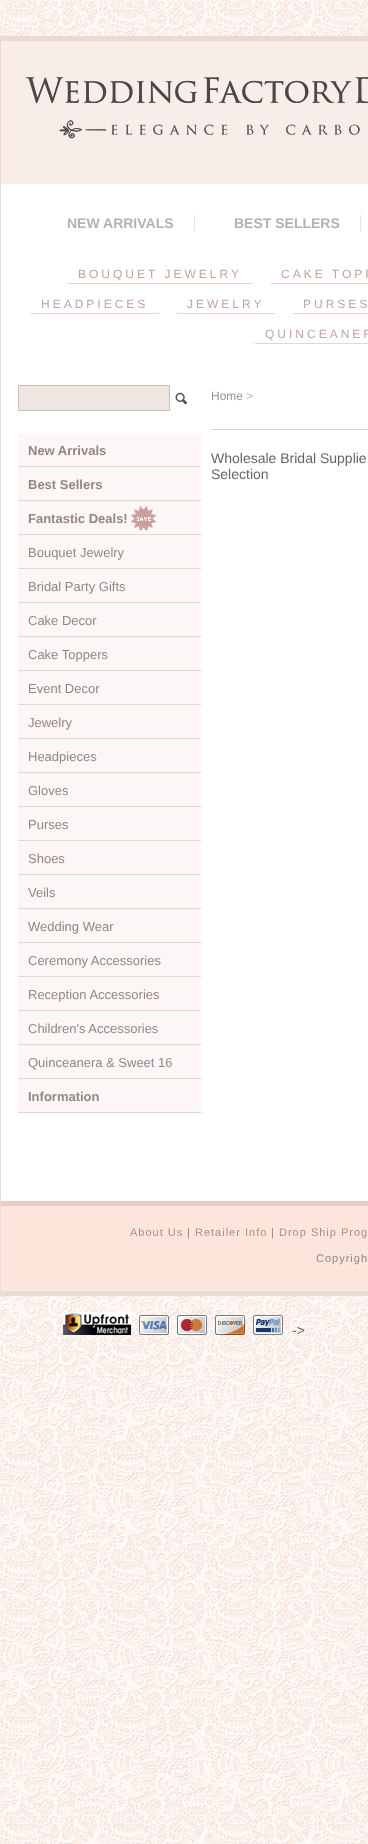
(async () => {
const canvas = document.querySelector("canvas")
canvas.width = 368
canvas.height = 1844
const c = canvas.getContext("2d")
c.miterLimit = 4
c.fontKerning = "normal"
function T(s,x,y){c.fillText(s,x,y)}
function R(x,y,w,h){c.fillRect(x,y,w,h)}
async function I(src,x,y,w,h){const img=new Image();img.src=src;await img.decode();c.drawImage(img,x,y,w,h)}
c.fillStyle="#fff"
R(0,0,368,1844)
await I("1.png",0,0,368,1844)
R(1,184,367,1017)
c.fillStyle="#eadad4"
R(0,36,368,5)
R(0,1291,368,5)
R(0,36,1,1260)
c.fillStyle="#f8ede9"
R(1,41,367,143)
await I("2.png",25,77,343,62)
c.fillStyle="#e3e3e3"
R(194,215,1,16)
c.font="bold 14px Liberation Sans"
c.fillStyle="#b9b0ad"
T("NEW ARRIVALS",67,228)
c.fillStyle="#e3e3e3"
R(360,215,1,16)
c.fillStyle="#b9b0ad"
T("BEST SELLERS",234,228)
c.fillStyle="#edd3cc"
R(68,283,184,1)
c.letterSpacing="3px"
c.font="12px Liberation Sans"
c.fillStyle="#c0a49d"
T("BOUQUET JEWELRY",78,278)
c.fillStyle="#edd3cc"
R(271,283,97,1)
c.fillStyle="#c0a49d"
T("CAKE TOPP",281,278)
c.fillStyle="#edd3cc"
R(31,313,128,1)
c.fillStyle="#c0a49d"
T("HEADPIECES",41,308)
c.fillStyle="#edd3cc"
R(177,313,98,1)
c.fillStyle="#c0a49d"
T("JEWELRY",187,308)
c.fillStyle="#edd3cc"
R(293,313,75,1)
c.fillStyle="#c0a49d"
T("PURSES",303,308)
c.fillStyle="#edd3cc"
R(255,343,113,1)
c.fillStyle="#c0a49d"
T("QUINCEANER",265,338)
c.fillStyle="#efe5e1"
c.beginPath()
c.rect(18.5,385.5,151,25)
c.fill()
c.strokeStyle="#d1bcb6"
c.stroke()
await I("3.png",175,392,12,13)
c.fillStyle="#e4d0c6"
R(211,429,157,1)
c.letterSpacing="0px"
c.fillStyle="#9d918e"
T("Home",211,400)
c.fillStyle="#c8a99a"
T(">",246,400)
c.font="14px Liberation Sans"
c.fillStyle="#666"
T("Wholesale Bridal Supplie",211,463)
T("Selection",211,479)
c.fillStyle="#fcf6f6"
R(18,433,183,33)
c.fillStyle="#e3d5cf"
R(18,466,183,1)
c.font="bold 13px Liberation Sans"
c.fillStyle="#948683"
T("New Arrivals",28,455)
c.fillStyle="#fcf6f6"
R(18,467,183,33)
c.fillStyle="#e3d5cf"
R(18,500,183,1)
c.fillStyle="#948683"
T("Best Sellers",28,489)
c.fillStyle="#fcf6f6"
R(18,501,183,33)
c.fillStyle="#e3d5cf"
R(18,534,183,1)
c.fillStyle="#948683"
T("Fantastic Deals!",28,523)
await I("4.png",131,506,25,25)
c.fillStyle="#fcf6f6"
R(18,535,183,33)
c.fillStyle="#e3d5cf"
R(18,568,183,1)
c.font="13px Liberation Sans"
c.fillStyle="#948683"
T("Bouquet Jewelry",28,557)
c.fillStyle="#fcf6f6"
R(18,569,183,33)
c.fillStyle="#e3d5cf"
R(18,602,183,1)
c.fillStyle="#948683"
T("Bridal Party Gifts",28,591)
c.fillStyle="#fcf6f6"
R(18,603,183,33)
c.fillStyle="#e3d5cf"
R(18,636,183,1)
c.fillStyle="#948683"
T("Cake Decor",28,625)
c.fillStyle="#fcf6f6"
R(18,637,183,33)
c.fillStyle="#e3d5cf"
R(18,670,183,1)
c.fillStyle="#948683"
T("Cake Toppers",28,659)
c.fillStyle="#fcf6f6"
R(18,671,183,33)
c.fillStyle="#e3d5cf"
R(18,704,183,1)
c.fillStyle="#948683"
T("Event Decor",28,693)
c.fillStyle="#fcf6f6"
R(18,705,183,33)
c.fillStyle="#e3d5cf"
R(18,738,183,1)
c.fillStyle="#948683"
T("Jewelry",28,727)
c.fillStyle="#fcf6f6"
R(18,739,183,33)
c.fillStyle="#e3d5cf"
R(18,772,183,1)
c.fillStyle="#948683"
T("Headpieces",28,761)
c.fillStyle="#fcf6f6"
R(18,773,183,33)
c.fillStyle="#e3d5cf"
R(18,806,183,1)
c.fillStyle="#948683"
T("Gloves",28,795)
c.fillStyle="#fcf6f6"
R(18,807,183,33)
c.fillStyle="#e3d5cf"
R(18,840,183,1)
c.fillStyle="#948683"
T("Purses",28,829)
c.fillStyle="#fcf6f6"
R(18,841,183,33)
c.fillStyle="#e3d5cf"
R(18,874,183,1)
c.fillStyle="#948683"
T("Shoes",28,863)
c.fillStyle="#fcf6f6"
R(18,875,183,33)
c.fillStyle="#e3d5cf"
R(18,908,183,1)
c.fillStyle="#948683"
T("Veils",28,897)
c.fillStyle="#fcf6f6"
R(18,909,183,33)
c.fillStyle="#e3d5cf"
R(18,942,183,1)
c.fillStyle="#948683"
T("Wedding Wear",28,931)
c.fillStyle="#fcf6f6"
R(18,943,183,33)
c.fillStyle="#e3d5cf"
R(18,976,183,1)
c.fillStyle="#948683"
T("Ceremony Accessories",28,965)
c.fillStyle="#fcf6f6"
R(18,977,183,33)
c.fillStyle="#e3d5cf"
R(18,1010,183,1)
c.fillStyle="#948683"
T("Reception Accessories",28,999)
c.fillStyle="#fcf6f6"
R(18,1011,183,33)
c.fillStyle="#e3d5cf"
R(18,1044,183,1)
c.fillStyle="#948683"
T("Children's Accessories",28,1033)
c.fillStyle="#fcf6f6"
R(18,1045,183,33)
c.fillStyle="#e3d5cf"
R(18,1078,183,1)
c.fillStyle="#948683"
T("Quinceanera & Sweet 16",28,1067)
c.fillStyle="#fcf6f6"
R(18,1079,183,33)
c.fillStyle="#e3d5cf"
R(18,1112,183,1)
c.font="bold 13px Liberation Sans"
c.fillStyle="#948683"
T("Information",28,1101)
c.fillStyle="#fce5da"
R(1,1206,367,85)
c.fillStyle="#ebcdc3"
R(1,1201,367,5)
c.letterSpacing="1px"
c.font="11px Liberation Sans"
c.fillStyle="#9d918e"
T("About Us",130,1236)
c.fillStyle="#888"
T("|",187,1236)
c.fillStyle="#9d918e"
T("Retailer Info",195,1236)
c.fillStyle="#888"
T("|",271,1236)
c.fillStyle="#9d918e"
T("Drop Ship Prog",279,1236)
c.fillStyle="#888"
T("Copyrigh",316,1262)
await I("5.png",63,1312,68,23)
await I("6.png",139,1315,144,20)
c.letterSpacing="0px"
c.font="14px Liberation Sans"
c.fillStyle="#666"
T("->",292,1335)
})()
